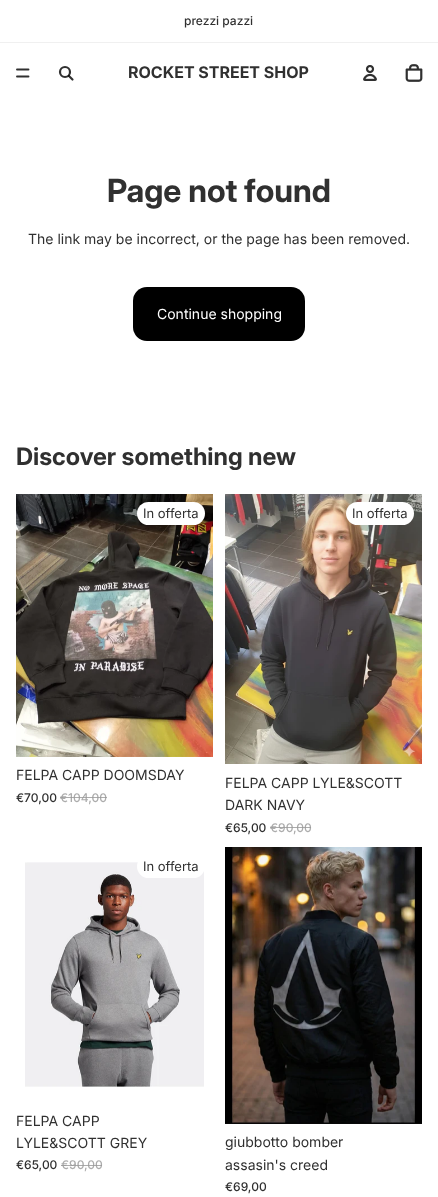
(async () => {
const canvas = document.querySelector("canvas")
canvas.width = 438
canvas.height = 1197
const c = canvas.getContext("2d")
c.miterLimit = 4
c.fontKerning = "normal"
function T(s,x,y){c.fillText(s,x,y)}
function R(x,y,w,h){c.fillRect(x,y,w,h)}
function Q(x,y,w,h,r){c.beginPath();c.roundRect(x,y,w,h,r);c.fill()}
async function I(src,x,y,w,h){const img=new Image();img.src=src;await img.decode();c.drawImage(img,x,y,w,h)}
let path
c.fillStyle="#fff"
R(0,0,438,1197)
c.fillStyle="#f0f0f0"
R(0,42,438,1)
c.font="500 12px Inter"
c.fillStyle="#303030"
T("prezzi pazzi",184,25)
path = new Path2D("M17 69.5h11.5m-11.5 7h11.5")
c.strokeStyle="#303030"
c.lineWidth=1.9
c.lineCap="round"
c.stroke(path)
c.beginPath()
c.arc(65,72,5,0,7)
c.lineWidth=2.2
c.stroke()
path = new Path2D("M69 76l3.5 3.5")
c.strokeStyle="#000000cf"
c.lineJoin="round"
c.stroke(path)
c.font="bold 16px 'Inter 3'"
T("ROCKET STREET SHOP",128,78)
await I("1.png",363,65,14,16)
await I("2.png",405,64,18,18)
c.font="bold 32px Inter"
T("Page not found",107,202)
c.font="14px Inter"
T("The link may be incorrect, or the page has been removed.",28,244)
c.fillStyle="#000"
Q(133,287,172,54,14)
c.fillStyle="#fff"
T("Continue shopping",157,319)
c.font="bold 24px 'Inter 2'"
c.fillStyle="#303030"
T("Discover something new",16,465)
await I("3.png",16,494,197,263)
c.fillStyle="#fff"
Q(137,502,68,23,11.5)
c.font="13px Inter"
c.fillStyle="#303030"
T("In offerta",143,518)
c.font="14px Inter"
T("FELPA CAPP DOOMSDAY",16,780)
c.font="500 12px Inter"
T("€70,00",16,802)
c.fillStyle="#acacac"
T("€104,00",60,802)
c.fillStyle="#999999cf"
R(60,797,47,1)
await I("4.png",225,494,197,270)
c.fillStyle="#fff"
Q(346,502,68,23,11.5)
c.font="13px Inter"
c.fillStyle="#303030"
T("In offerta",352,518)
c.font="14px Inter"
T("FELPA CAPP LYLE&SCOTT",225,788)
T("DARK NAVY",225,810)
c.font="500 12px Inter"
T("€65,00",225,832)
c.fillStyle="#acacac"
T("€90,00",270,832)
c.fillStyle="#999999cf"
R(270,827,41,1)
await I("5.png",25,862,179,225)
c.fillStyle="#fff"
Q(137,855,68,23,11.5)
c.font="13px Inter"
c.fillStyle="#303030"
T("In offerta",143,871)
c.font="14px Inter"
T("FELPA CAPP",16,1126)
T("LYLE&SCOTT GREY",16,1148)
c.font="500 12px Inter"
T("€65,00",16,1169)
c.fillStyle="#acacac"
T("€90,00",61,1169)
c.fillStyle="#999999cf"
R(61,1165,41,1)
await I("6.png",225,847,197,277)
c.font="14px Inter"
c.fillStyle="#303030"
T("giubbotto bomber",225,1147)
T("assasin's creed",225,1170)
c.font="500 12px Inter"
T("€69,00",225,1191)
})()
